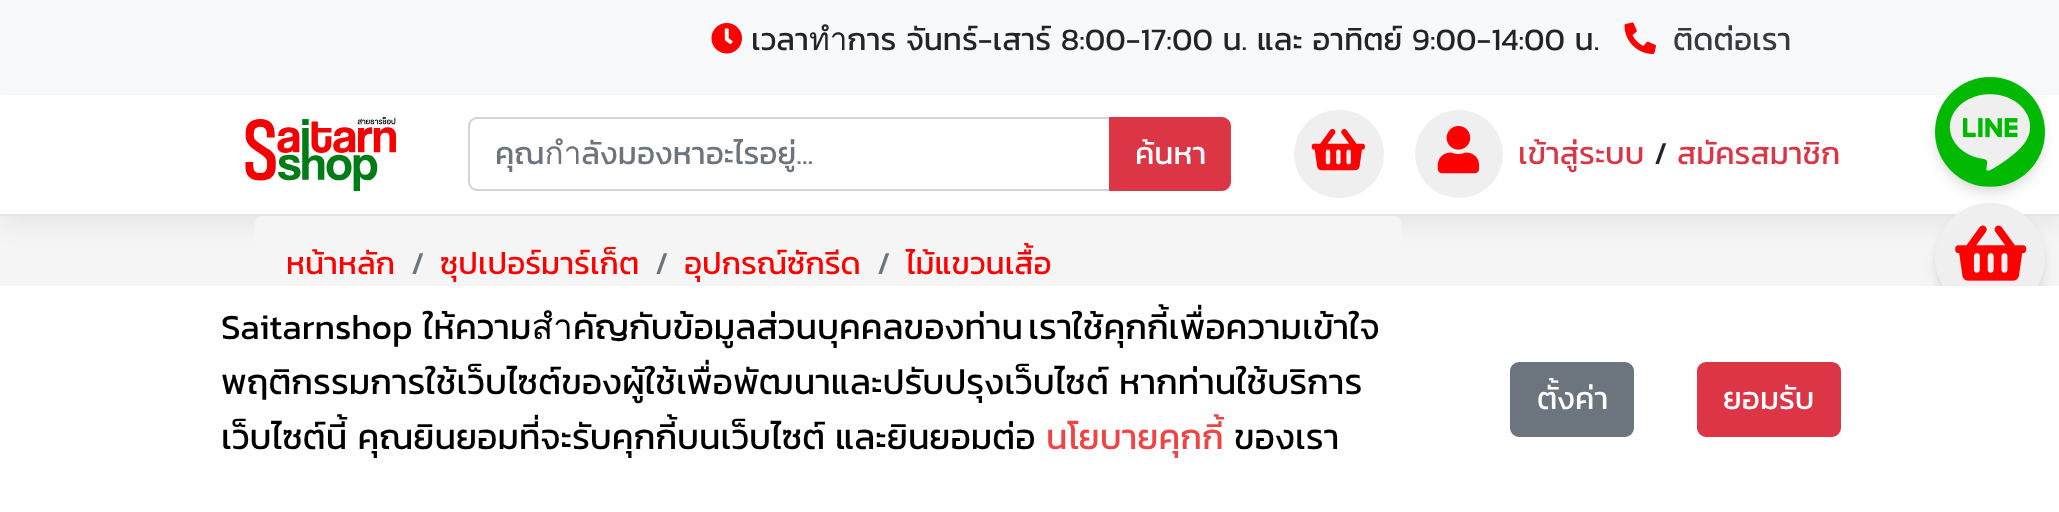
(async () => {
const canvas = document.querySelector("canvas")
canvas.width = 2059
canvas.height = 512
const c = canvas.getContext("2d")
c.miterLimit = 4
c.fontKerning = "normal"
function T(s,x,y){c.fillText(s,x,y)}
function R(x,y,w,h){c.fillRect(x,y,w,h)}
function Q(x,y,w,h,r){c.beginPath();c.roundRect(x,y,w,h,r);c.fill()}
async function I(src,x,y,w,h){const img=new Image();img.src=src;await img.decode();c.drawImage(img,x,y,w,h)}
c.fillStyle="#f5f5f5"
R(0,0,2059,512)
c.fillStyle="#f8f9fa"
R(0,0,2059,95)
await I("1.png",711,23,31,31)
c.wordSpacing="2.25px"
c.font="31.5px Kanit"
c.fillStyle="#212529"
T("เวลาทำการ จันทร์-เสาร์ 8:00-17:00 น. และ อาทิตย์ 9:00-14:00 น.",751,50)
await I("2.png",1624,22,32,32)
c.wordSpacing="0px"
c.fillStyle="#343a40"
T("ติดต่อเรา",1673,50)
c.fillStyle="#0000000d"
c.filter="blur(11px)"
c.beginPath()
c.rect(0,106,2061,121)
c.fill()
c.filter="none"
c.fillStyle="#fff"
R(0,95,2059,119)
c.fillStyle="#e5e5e5"
R(0,214,2059,2)
await I("3.png",245,117,151,74)
c.beginPath()
c.roundRect(469,118,642,72,[8,0,0,8])
c.strokeStyle="#ced4da"
c.lineWidth=2
c.stroke()
c.save()
c.beginPath()
c.rect(495,131,590,47)
c.clip()
c.fillStyle="#6c757d"
T("คุณกำลังมองหาอะไรอยู่...",495,164)
c.restore()
c.fillStyle="#dc3545"
c.beginPath()
c.roundRect(1110,118,120,72,[0,8,8,0])
c.fill()
c.strokeStyle="#dc3545"
c.stroke()
c.fillStyle="#fff"
T("ค้นหา",1135,164)
c.fillStyle="#efefef"
Q(1294,110,90,88,44)
await I("4.png",1311,129,54,42)
c.beginPath()
c.arc(1459,154,44,0,7)
c.fill()
await I("5.png",1437,126,43,48)
c.fillStyle="#dc3545"
T("เข้าสู่ระบบ",1518,164)
c.fillStyle="#212529"
T("/",1654,164)
c.fillStyle="#dc3545"
T("สมัครสมาชิก",1677,164)
c.fillStyle="#f5f5f5"
Q(254,216,1148,95,9)
c.fillStyle="#f00"
T("หน้าหลัก",286,274)
c.fillStyle="#6c757d"
T("/",411,274)
c.fillStyle="#f00"
T("ซุปเปอร์มาร์เก็ต",440,274)
c.fillStyle="#6c757d"
T("/",655,274)
c.fillStyle="#f00"
T("อุปกรณ์ซักรีด",684,274)
c.fillStyle="#6c757d"
T("/",877,274)
c.fillStyle="#f00"
T("ไม้แขวนเสื้อ",906,274)
c.fillStyle="#0000000f"
c.filter="blur(4.5px)"
c.beginPath()
c.roundRect(1937,209,106,106,53)
c.fill()
c.filter="none"
c.fillStyle="#0000001a"
c.filter="blur(7px)"
c.beginPath()
c.roundRect(1937,214,106,106,53)
c.fill()
c.filter="none"
c.fillStyle="#efefef"
c.beginPath()
c.arc(1990,258,55,0,7)
c.fill()
c.fillStyle="#0000000f"
c.filter="blur(4.5px)"
c.beginPath()
c.roundRect(1937,83,106,106,53)
c.fill()
c.filter="none"
c.fillStyle="#0000001a"
c.filter="blur(7px)"
c.beginPath()
c.roundRect(1937,88,106,106,53)
c.fill()
c.filter="none"
c.fillStyle="#efefef"
c.beginPath()
c.arc(1990,132,55,0,7)
c.fill()
await I("6.png",1935,77,110,110)
await I("7.png",1955,225,72,56)
c.fillStyle="#fff"
R(0,286,2059,226)
c.wordSpacing="2.25px"
c.font="35.45px Kanit"
c.fillStyle="#000"
T("Saitarnshop ให้ความสำคัญกับข้อมูลส่วนบุคคลของท่าน",221,339)
c.wordSpacing="0px"
T("เราใช้คุกกี้เพื่อความเข้าใจ",1028,339)
T("พฤติกรรมการใช้เว็บไซต์ของผู้ใช้เพื่อพัฒนาและปรับปรุงเว็บไซต์",221,394)
T("หากท่านใช้บริการ",1119,394)
c.wordSpacing="2.25px"
T("เว็บไซต์นี้ คุณยินยอมที่จะรับคุกกี้บนเว็บไซต์",221,449)
c.wordSpacing="0px"
T("และยินยอมต่อ",835,449)
c.fillStyle="#ef4444"
T("นโยบายคุกกี้",1046,449)
c.fillStyle="#000"
T("ของเรา",1234,449)
c.fillStyle="#6c757d"
c.beginPath()
c.roundRect(1511,363,122,73,8)
c.fill()
c.strokeStyle="#6c757d"
c.stroke()
c.font="31.5px Kanit"
c.fillStyle="#fff"
T("ตั้งค่า",1537,409)
c.fillStyle="#dc3545"
c.beginPath()
c.roundRect(1698,363,142,73,8)
c.fill()
c.strokeStyle="#dc3545"
c.stroke()
c.fillStyle="#fff"
T("ยอมรับ",1723,409)
})()
